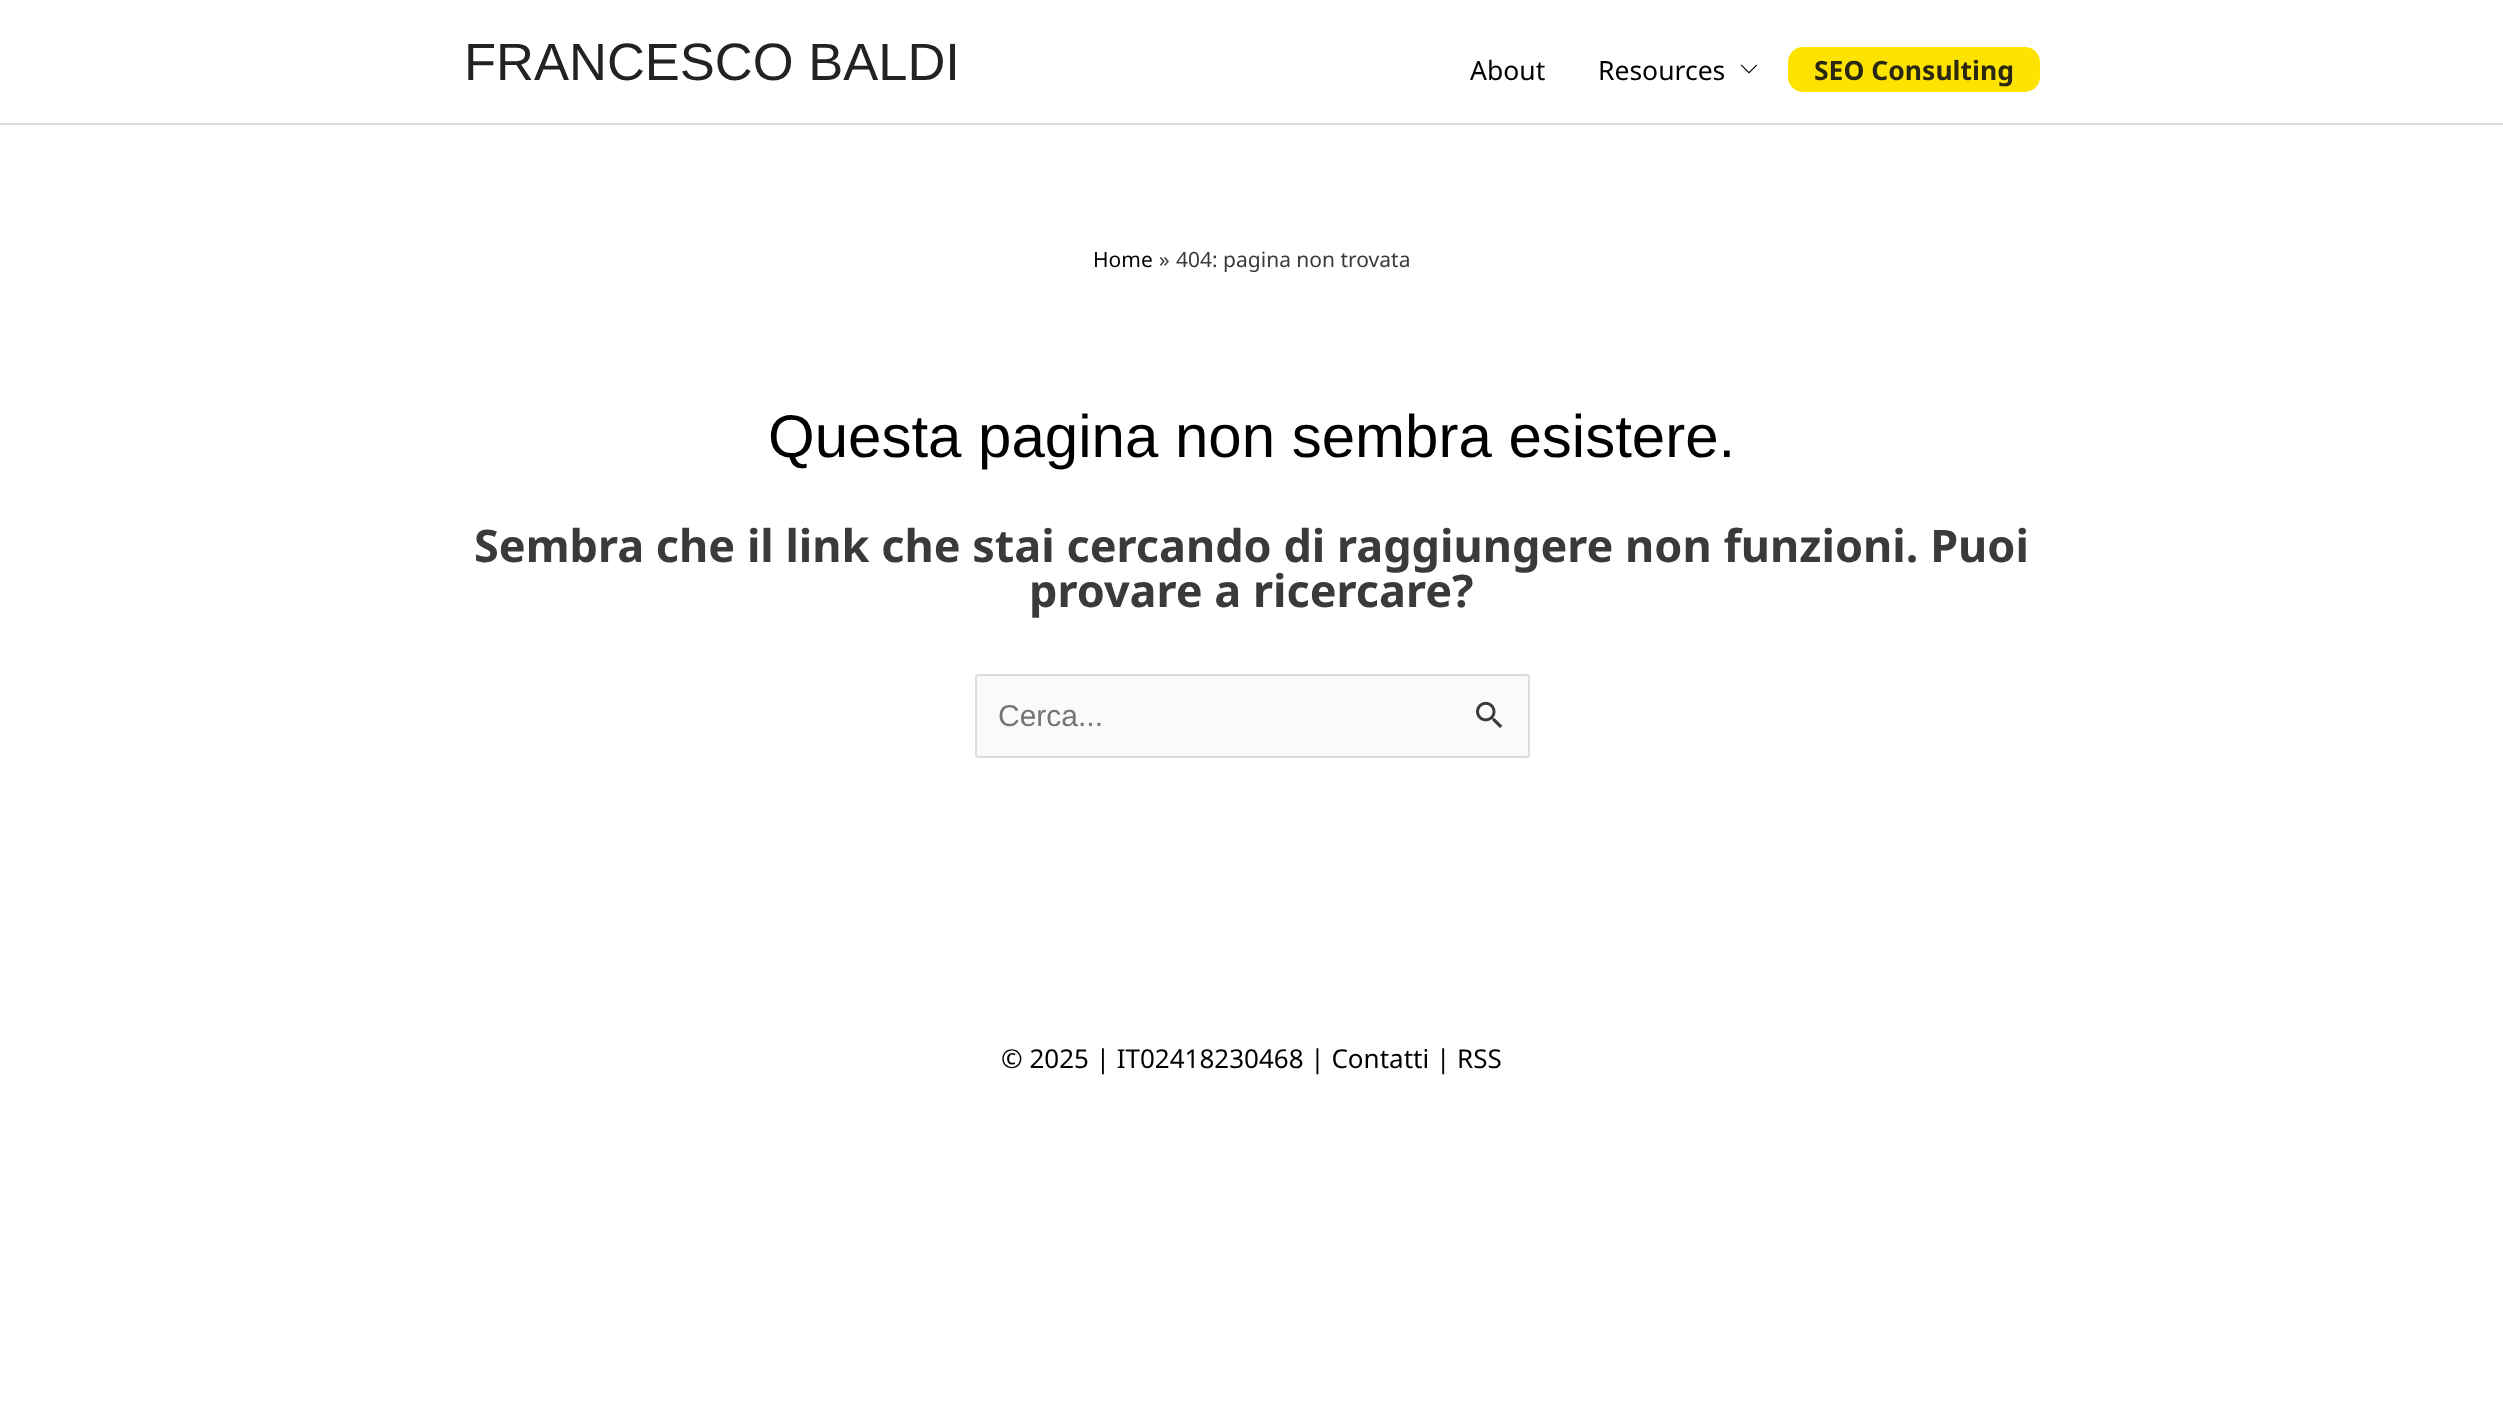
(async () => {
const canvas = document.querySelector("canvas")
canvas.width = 2503
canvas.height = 1424
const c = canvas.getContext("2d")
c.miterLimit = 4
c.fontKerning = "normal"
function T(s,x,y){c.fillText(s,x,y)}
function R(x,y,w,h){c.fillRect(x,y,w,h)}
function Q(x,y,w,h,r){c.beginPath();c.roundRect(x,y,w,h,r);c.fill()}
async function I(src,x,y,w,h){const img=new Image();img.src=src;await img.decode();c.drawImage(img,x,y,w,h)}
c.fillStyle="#fff"
R(0,0,2503,1424)
c.fillStyle="#ddd"
R(0,123,2503,2)
c.font="52.5px Liberation Sans"
c.fillStyle="#222"
T("FRANCESCO BALDI",464,80)
c.font="26.5px Noto Sans"
c.fillStyle="#000"
T("About",1470,80)
T("Resources",1598,80)
await I("1.png",1740,64,17,10)
c.fillStyle="#ffe300"
Q(1788,47,252,45,15)
c.font="bold 26.5px Noto Sans"
c.fillStyle="#2b2812"
T("SEO Consulting",1814,80)
c.font="21px Noto Sans"
c.fillStyle="#000"
T("Home",1093,267)
c.fillStyle="#3a3a3a"
T("»",1159,267)
T("404: pagina non trovata",1176,267)
c.font="60px Liberation Sans"
c.fillStyle="#000"
T("Questa pagina non sembra esistere.",768,457)
c.font="bold 45px Noto Sans"
c.fillStyle="#3a3a3a"
T("Sembra che il link che stai cercando di raggiungere non funzioni. Puoi",474,562)
T("provare a ricercare?",1029,607)
c.fillStyle="#fafafa"
c.beginPath()
c.roundRect(976,675,553,82,2)
c.fill()
c.strokeStyle="#ddd"
c.lineWidth=2
c.stroke()
c.font="30px Liberation Sans"
c.fillStyle="#757575"
T("Cerca...",998,726)
await I("2.png",1476,701,27,27)
c.font="26px Noto Sans"
c.fillStyle="#000"
T("© 2025 | IT02418230468 | Contatti | RSS",1001,1068)
})()
